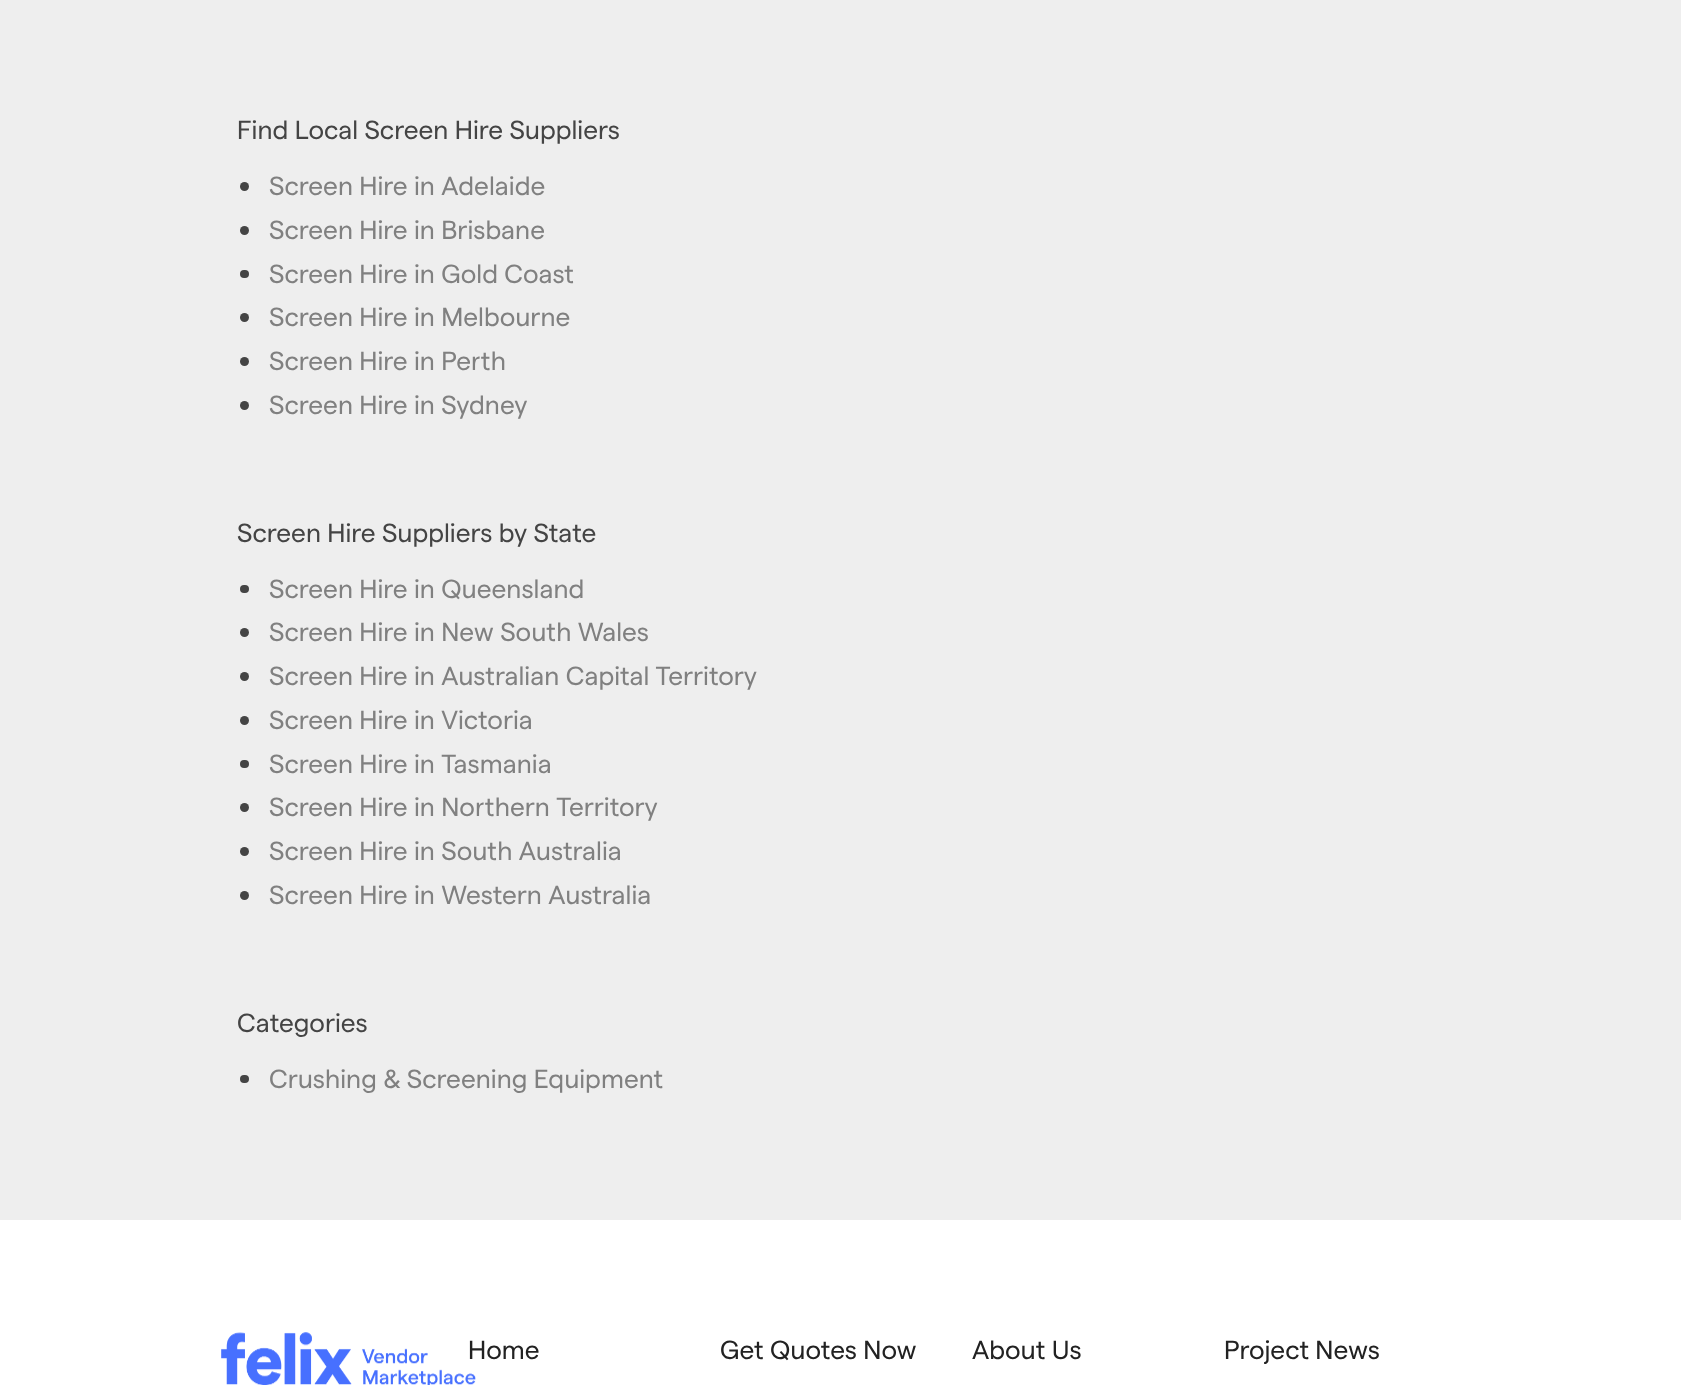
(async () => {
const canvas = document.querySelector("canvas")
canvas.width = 1681
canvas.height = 1385
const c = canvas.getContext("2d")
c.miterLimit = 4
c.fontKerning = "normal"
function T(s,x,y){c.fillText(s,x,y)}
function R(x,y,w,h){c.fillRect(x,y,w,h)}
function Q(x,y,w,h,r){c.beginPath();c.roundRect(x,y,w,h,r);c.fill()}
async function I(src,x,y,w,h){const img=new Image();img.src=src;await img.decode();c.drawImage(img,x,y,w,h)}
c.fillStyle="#fff"
R(0,0,1681,1385)
c.fillStyle="#eee"
R(0,0,1681,1220)
c.font="26.25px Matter"
c.fillStyle="#444"
T("Find Local Screen Hire Suppliers",237,139)
c.beginPath()
c.arc(244.5,186.5,4.5,0,7)
c.fill()
c.fillStyle="#808080"
T("Screen Hire in Adelaide",269,195)
c.fillStyle="#444"
c.beginPath()
c.arc(244.5,230.5,4.5,0,7)
c.fill()
c.fillStyle="#808080"
T("Screen Hire in Brisbane",269,239)
c.fillStyle="#444"
Q(240,270,9,8,4)
c.fillStyle="#808080"
T("Screen Hire in Gold Coast",269,283)
c.fillStyle="#444"
c.beginPath()
c.arc(244.5,317.5,4.5,0,7)
c.fill()
c.fillStyle="#808080"
T("Screen Hire in Melbourne",269,326)
c.fillStyle="#444"
c.beginPath()
c.arc(244.5,361.5,4.5,0,7)
c.fill()
c.fillStyle="#808080"
T("Screen Hire in Perth",269,370)
c.fillStyle="#444"
c.beginPath()
c.arc(244.5,405.5,4.5,0,7)
c.fill()
c.fillStyle="#808080"
T("Screen Hire in Sydney",269,414)
c.fillStyle="#444"
T("Screen Hire Suppliers by State",237,542)
Q(240,585,9,8,4)
c.fillStyle="#808080"
T("Screen Hire in Queensland",269,598)
c.fillStyle="#444"
c.beginPath()
c.arc(244.5,632.5,4.5,0,7)
c.fill()
c.fillStyle="#808080"
T("Screen Hire in New South Wales",269,641)
c.fillStyle="#444"
c.beginPath()
c.arc(244.5,676.5,4.5,0,7)
c.fill()
c.fillStyle="#808080"
T("Screen Hire in Australian Capital Territory",269,685)
c.fillStyle="#444"
c.beginPath()
c.arc(244.5,720.5,4.5,0,7)
c.fill()
c.fillStyle="#808080"
T("Screen Hire in Victoria",269,729)
c.fillStyle="#444"
Q(240,760,9,8,4)
c.fillStyle="#808080"
T("Screen Hire in Tasmania",269,773)
c.fillStyle="#444"
c.beginPath()
c.arc(244.5,807.5,4.5,0,7)
c.fill()
c.fillStyle="#808080"
T("Screen Hire in Northern Territory",269,816)
c.fillStyle="#444"
c.beginPath()
c.arc(244.5,851.5,4.5,0,7)
c.fill()
c.fillStyle="#808080"
T("Screen Hire in South Australia",269,860)
c.fillStyle="#444"
c.beginPath()
c.arc(244.5,895.5,4.5,0,7)
c.fill()
c.fillStyle="#808080"
T("Screen Hire in Western Australia",269,904)
c.fillStyle="#444"
T("Categories",237,1032)
Q(240,1075,9,8,4)
c.fillStyle="#808080"
T("Crushing & Screening Equipment",269,1088)
await I("1.png",221,1332,255,53)
c.fillStyle="#222"
T("Home",468,1359)
T("Get Quotes Now",720,1359)
T("About Us",972,1359)
T("Project News",1224,1359)
})()
